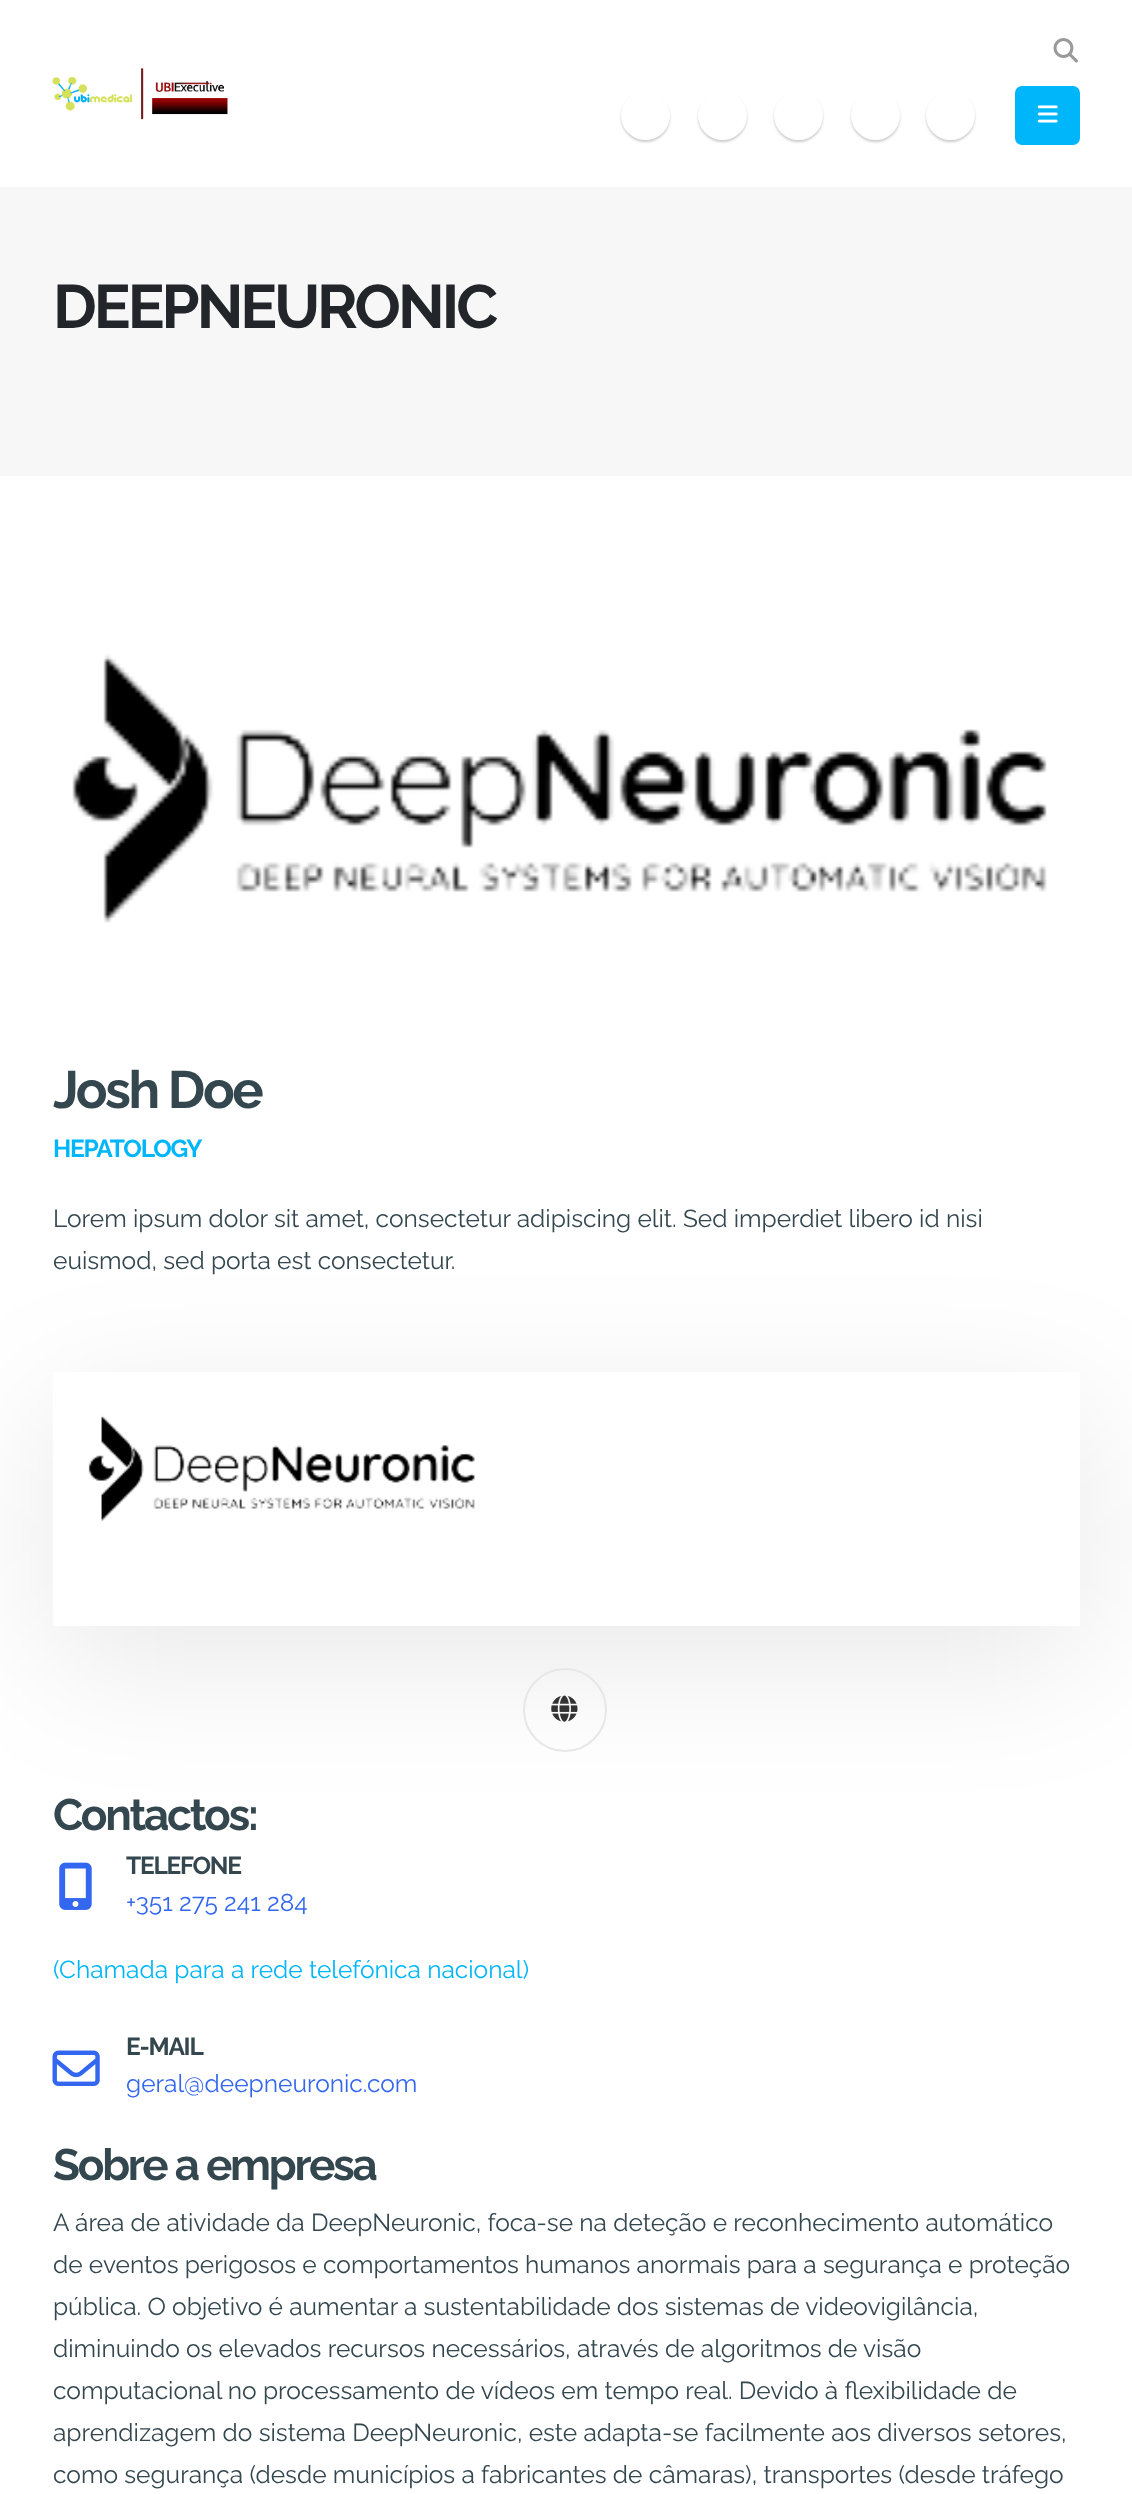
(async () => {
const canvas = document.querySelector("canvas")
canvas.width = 1132
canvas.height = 2494
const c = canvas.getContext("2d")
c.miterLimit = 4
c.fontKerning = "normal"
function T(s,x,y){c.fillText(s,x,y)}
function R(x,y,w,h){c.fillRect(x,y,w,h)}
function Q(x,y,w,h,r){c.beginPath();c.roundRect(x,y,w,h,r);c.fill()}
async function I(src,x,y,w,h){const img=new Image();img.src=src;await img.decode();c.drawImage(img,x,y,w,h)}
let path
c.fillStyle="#fff"
R(0,0,1132,2494)
await I("1.png",52,68,176,52)
await I("2.png",1053,38,25,25)
c.fillStyle="#00000033"
c.filter="blur(1px)"
c.beginPath()
c.roundRect(621,93,49,49,24.5)
c.fill()
c.filter="none"
c.fillStyle="#fff"
c.beginPath()
c.arc(645.5,115.5,24.5,0,7)
c.fill()
c.fillStyle="#00000033"
c.filter="blur(1px)"
c.beginPath()
c.roundRect(698,93,49,49,24.5)
c.fill()
c.filter="none"
c.fillStyle="#fff"
c.beginPath()
c.arc(722.5,115.5,24.5,0,7)
c.fill()
c.fillStyle="#00000033"
c.filter="blur(1px)"
c.beginPath()
c.roundRect(774,93,49,49,24.5)
c.fill()
c.filter="none"
c.fillStyle="#fff"
c.beginPath()
c.arc(798.5,115.5,24.5,0,7)
c.fill()
c.fillStyle="#00000033"
c.filter="blur(1px)"
c.beginPath()
c.roundRect(851,93,49,49,24.5)
c.fill()
c.filter="none"
c.fillStyle="#fff"
c.beginPath()
c.arc(875.5,115.5,24.5,0,7)
c.fill()
c.fillStyle="#00000033"
c.filter="blur(1px)"
c.beginPath()
c.roundRect(926,93,49,49,24.5)
c.fill()
c.filter="none"
c.fillStyle="#fff"
c.beginPath()
c.arc(950.5,115.5,24.5,0,7)
c.fill()
c.fillStyle="#00b6fb"
Q(1015,86,65,59,7)
await I("3.png",1037,105,21,18)
c.fillStyle="#f7f7f7"
R(0,187,1132,289)
c.letterSpacing="-3px"
c.font="bold 61.25px Raleway"
c.fillStyle="#222529"
T("DEEPNEURONIC",53,328)
await I("4.png",72,654,975,269)
c.letterSpacing="-2.5px"
c.font="bold 52.5px Raleway"
c.fillStyle="#34474f"
T("Josh Doe",53,1108)
c.letterSpacing="-1.25px"
c.font="bold 24.5px Raleway"
c.fillStyle="#00b6fb"
T("HEPATOLOGY",53,1157)
c.letterSpacing="0px"
c.font="24.5px Raleway"
c.fillStyle="#34474f"
T("Lorem ipsum dolor sit amet, consectetur adipiscing elit. Sed imperdiet libero id nisi",53,1227)
T("euismod, sed porta est consectetur.",53,1269)
c.save()
path = new Path2D("M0 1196h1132v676h-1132zm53 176h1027v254h-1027z")
c.clip(path,"evenodd")
c.fillStyle="#00000017"
c.filter="blur(70px)"
c.beginPath()
c.rect(53,1407,1027,254)
c.fill()
c.filter="none"
c.restore()
await I("5.png",88,1415,387,107)
c.beginPath()
c.arc(565,1710,41,0,7)
c.strokeStyle="#e7e7e7"
c.lineWidth=2
c.stroke()
await I("6.png",551,1695,27,27)
c.letterSpacing="-2.25px"
c.font="bold 44px Raleway"
T("Contactos:",53,1830)
await I("7.png",59,1862,33,48)
c.letterSpacing="-1.25px"
c.font="bold 24.5px Raleway"
T("TELEFONE",126,1874)
c.letterSpacing="0px"
c.font="24.5px Raleway"
c.fillStyle="#3467ef"
T("+351 275 241 284",126,1911)
c.fillStyle="#00b6fb"
T("(Chamada para a rede telefónica nacional)",53,1978)
await I("8.png",52,2050,48,36)
c.letterSpacing="-1.25px"
c.font="bold 24.5px Raleway"
c.fillStyle="#34474f"
T("E-MAIL",126,2055)
c.letterSpacing="0px"
c.font="24.5px Raleway"
c.fillStyle="#3467ef"
T("geral@deepneuronic.com",126,2092)
c.letterSpacing="-2.25px"
c.font="bold 44px Raleway"
c.fillStyle="#34474f"
T("Sobre a empresa",53,2180)
c.letterSpacing="0px"
c.font="24.5px Raleway"
T("A área de atividade da DeepNeuronic, foca-se na deteção e reconhecimento automático",53,2231)
T("de eventos perigosos e comportamentos humanos anormais para a segurança e proteção",53,2273)
T("pública. O objetivo é aumentar a sustentabilidade dos sistemas de videovigilância,",53,2315)
T("diminuindo os elevados recursos necessários, através de algoritmos de visão",53,2357)
T("computacional no processamento de vídeos em tempo real. Devido à flexibilidade de",53,2399)
T("aprendizagem do sistema DeepNeuronic, este adapta-se facilmente aos diversos setores,",53,2441)
T("como segurança (desde municípios a fabricantes de câmaras), transportes (desde tráfego",53,2483)
})()
